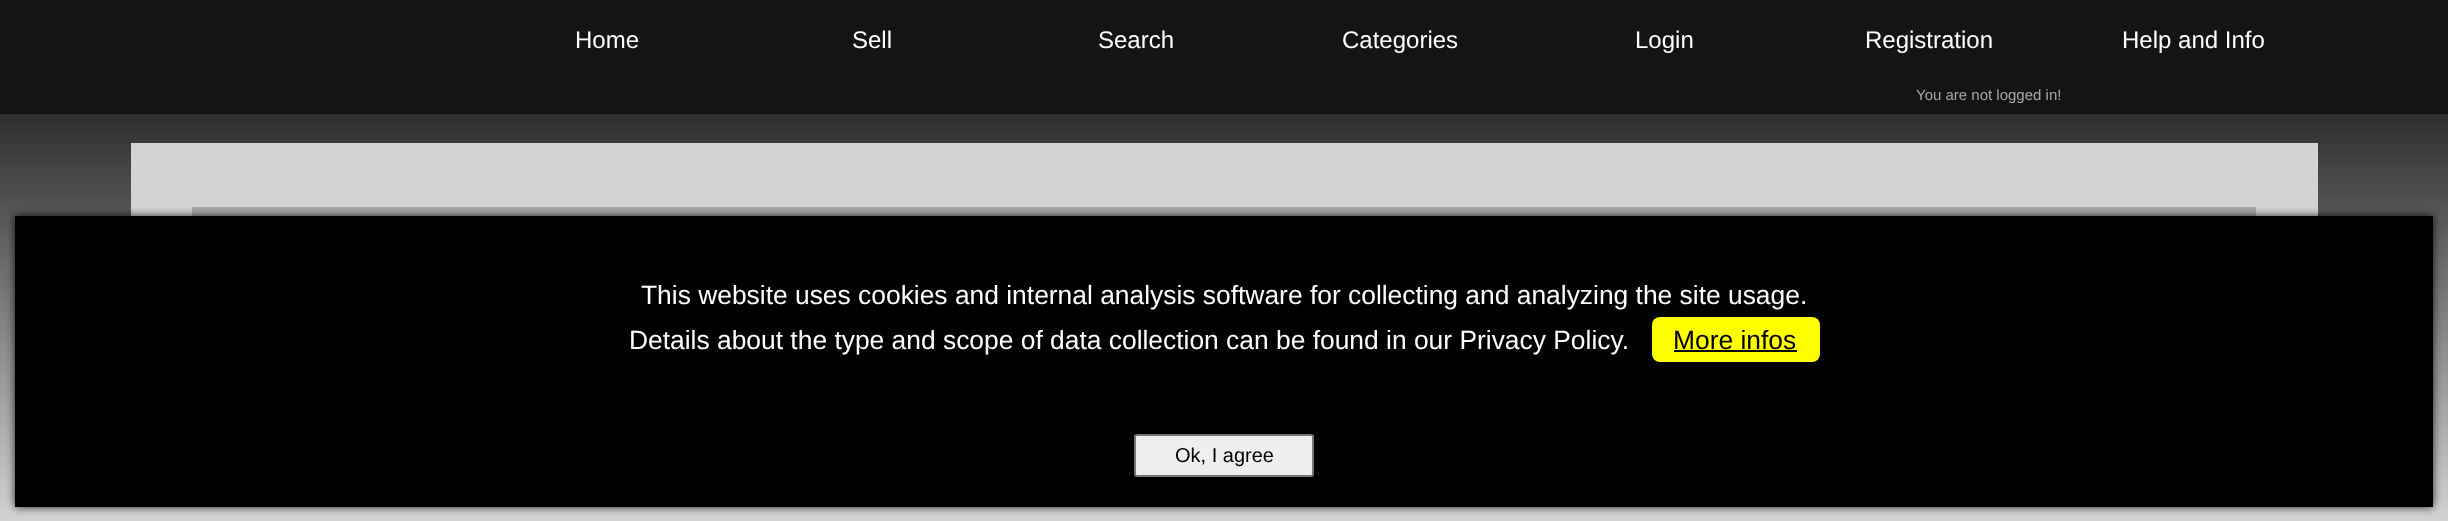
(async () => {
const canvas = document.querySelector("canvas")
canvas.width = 2448
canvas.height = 521
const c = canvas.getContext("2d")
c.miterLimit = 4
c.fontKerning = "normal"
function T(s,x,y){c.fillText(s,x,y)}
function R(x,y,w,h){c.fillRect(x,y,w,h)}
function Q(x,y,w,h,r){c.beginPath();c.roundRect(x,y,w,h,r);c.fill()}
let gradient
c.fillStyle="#fff"
R(0,0,2448,521)
gradient = c.createLinearGradient(1224,0,1224,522)
gradient.addColorStop(0,"#000")
gradient.addColorStop(1,"#d3d3d3")
c.fillStyle = gradient
R(0,114,2448,407)
c.fillStyle="#141414"
R(0,0,2448,114)
c.font="24px Liberation Sans"
c.fillStyle="#fff"
T("Home",575,48)
T("Sell",852,48)
T("Search",1098,48)
T("Categories",1342,48)
T("Login",1635,48)
T("Registration",1865,48)
T("Help and Info",2122,48)
c.font="15px Liberation Sans"
c.fillStyle="#a7a7a7"
T("You are not logged in!",1916,100)
c.fillStyle="#d3d3d3"
R(131,143,2187,73)
c.fillStyle="#a8a8a8"
R(192,207,2064,9)
c.fillStyle="#000000cc"
c.filter="blur(4px)"
c.beginPath()
c.rect(15,216,2418,291)
c.fill()
c.filter="none"
c.fillStyle="#000"
R(15,216,2418,291)
c.font="26.4px Liberation Sans"
c.fillStyle="#fff"
T("This website uses cookies and internal analysis software for collecting and analyzing the site usage.",641,304)
T("Details about the type and scope of data collection can be found in our Privacy Policy.",629,349)
c.fillStyle="#ff0"
Q(1652,317,168,45,8)
c.fillStyle="#000"
T("More infos",1673,349)
R(1674,350,123,2)
c.fillStyle="#efefef"
c.beginPath()
c.roundRect(1135,435,178,41,2)
c.fill()
c.strokeStyle="#767676"
c.lineWidth=2
c.stroke()
c.font="20px Liberation Sans"
c.fillStyle="#000"
T("Ok, I agree",1175,462)
})()
